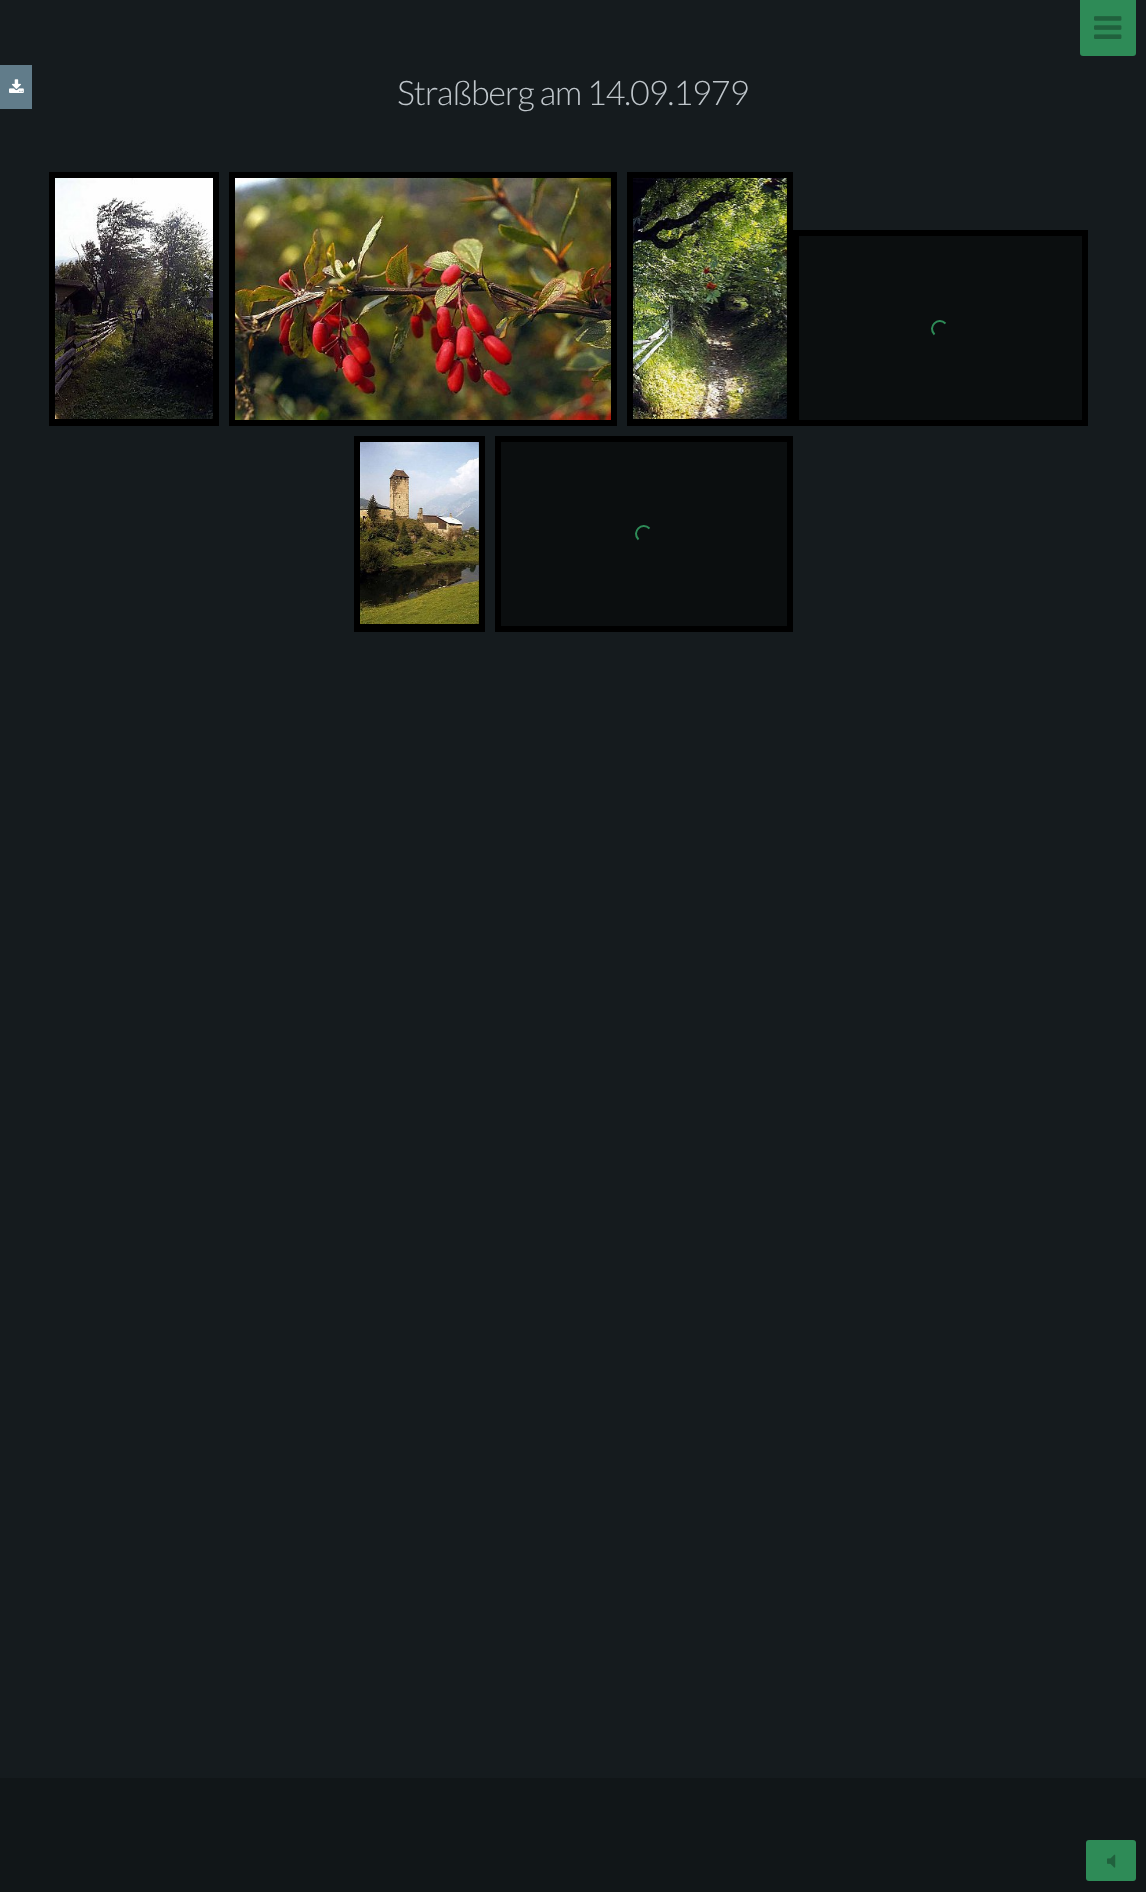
(async () => {
const canvas = document.querySelector("canvas")
canvas.width = 1146
canvas.height = 1892
const c = canvas.getContext("2d")
c.miterLimit = 4
c.fontKerning = "normal"
function T(s,x,y){c.fillText(s,x,y)}
function R(x,y,w,h){c.fillRect(x,y,w,h)}
function Q(x,y,w,h,r){c.beginPath();c.roundRect(x,y,w,h,r);c.fill()}
async function I(src,x,y,w,h){const img=new Image();img.src=src;await img.decode();c.drawImage(img,x,y,w,h)}
let path
c.fillStyle="#111618"
R(0,0,1146,1892)
c.fillStyle="#151b1e"
R(0,0,1146,1778)
c.fillStyle="#2e8b57"
c.beginPath()
c.roundRect(1080,0,56,56,[0,0,3,3])
c.fill()
await I("1.png",1094,16,28,23)
c.fillStyle="#617c8a"
R(0,65,32,44)
await I("2.png",9,79,15,14)
c.letterSpacing="-0.95px"
c.font="300 34px Lato"
c.fillStyle="#bfc6cb"
T("Straßberg am 14.09.1979",397,105)
c.fillStyle="#000"
R(49,172,170,254)
await I("3.png",55,178,158,241)
R(229,172,388,254)
await I("4.png",235,178,376,242)
R(627,172,166,254)
await I("5.png",633,178,154,241)
R(793,230,295,196)
c.fillStyle="#0b0e0f"
R(799,236,283,184)
path = new Path2D("M934.5 334.5c-7.5-7.5 3.5-18.5 11-11")
c.strokeStyle="#2e8b57"
c.lineWidth=2
c.stroke(path)
c.fillStyle="#000"
R(354,436,131,196)
await I("6.png",360,442,119,182)
R(495,436,298,196)
c.fillStyle="#0b0e0f"
R(501,442,286,184)
path = new Path2D("M638.5 539.5c-7.5-7.5 3.5-18.5 11-11")
c.stroke(path)
c.fillStyle="#2e8b57"
Q(1086,1840,50,41,3)
await I("7.png",1107,1854,9,14)
})()
